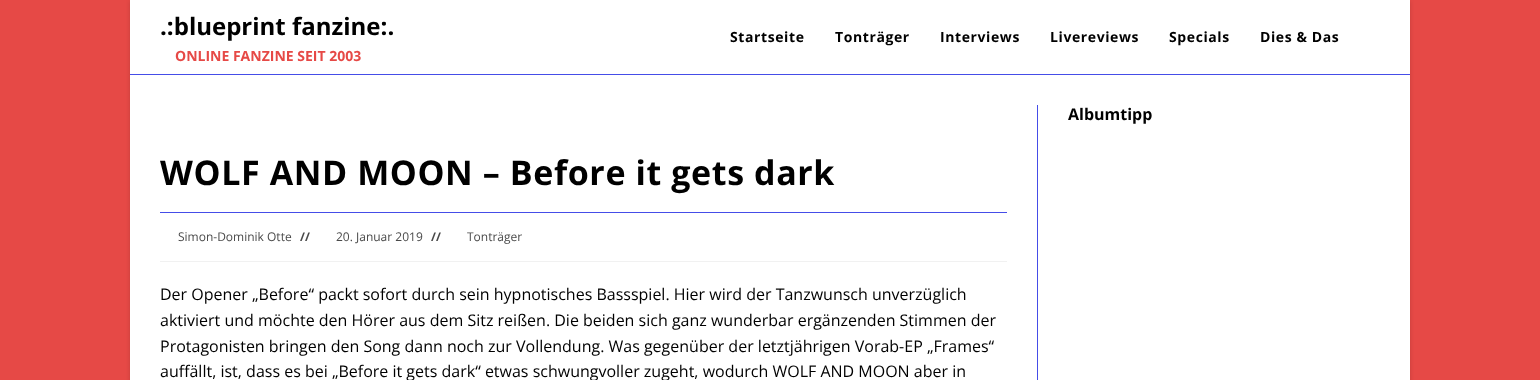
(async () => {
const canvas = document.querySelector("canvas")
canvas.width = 1540
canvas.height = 380
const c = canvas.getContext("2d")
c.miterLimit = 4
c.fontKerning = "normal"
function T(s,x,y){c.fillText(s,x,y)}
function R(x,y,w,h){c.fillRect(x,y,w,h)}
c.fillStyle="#e64946"
R(0,0,1540,380)
c.fillStyle="#00000026"
c.filter="blur(2px)"
c.beginPath()
c.rect(130,1,1280,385)
c.fill()
c.filter="none"
c.fillStyle="#fff"
R(130,0,1280,380)
c.fillStyle="#454de8"
R(130,74,1280,1)
c.font="bold 24px Open Sans"
c.fillStyle="#000"
T(".:blueprint fanzine:.",160,35)
c.font="bold 14px Open Sans"
c.fillStyle="#e64946"
T("ONLINE FANZINE SEIT 2003",175,61)
c.letterSpacing="0.6px"
c.fillStyle="#000"
T("Startseite",730,42)
T("Tonträger",835,42)
T("Interviews",940,42)
T("Livereviews",1050,42)
T("Specials",1169,42)
T("Dies & Das",1260,42)
c.letterSpacing="0px"
c.font="bold 16px Open Sans"
T("Albumtipp",1068,120)
c.fillStyle="#454de8"
R(1037,105,1,275)
R(160,212,847,1)
c.letterSpacing="0.6px"
c.font="bold 34px Open Sans"
c.fillStyle="#000"
T("WOLF AND MOON – Before it gets dark",160,185)
c.fillStyle="#f1f1f1"
R(160,261,847,1)
c.letterSpacing="0px"
c.font="12px Open Sans"
c.fillStyle="#4a4a4a"
T("Simon-Dominik Otte",178,241)
c.font="bold 12px Open Sans"
T("//",300,241)
c.font="12px Open Sans"
T("20. Januar 2019",336,241)
c.font="bold 12px Open Sans"
T("//",431,241)
c.font="12px Open Sans"
T("Tonträger",467,241)
c.font="16px Open Sans"
c.fillStyle="#000"
T("Der Opener „Before“ packt sofort durch sein hypnotisches Bassspiel. Hier wird der Tanzwunsch unverzüglich",160,300)
T("aktiviert und möchte den Hörer aus dem Sitz reißen. Die beiden sich ganz wunderbar ergänzenden Stimmen der",160,326)
T("Protagonisten bringen den Song dann noch zur Vollendung. Was gegenüber der letztjährigen Vorab-EP „Frames“",160,352)
T("auffällt, ist, dass es bei „Before it gets dark“ etwas schwungvoller zugeht, wodurch WOLF AND MOON aber in",160,377)
})()
